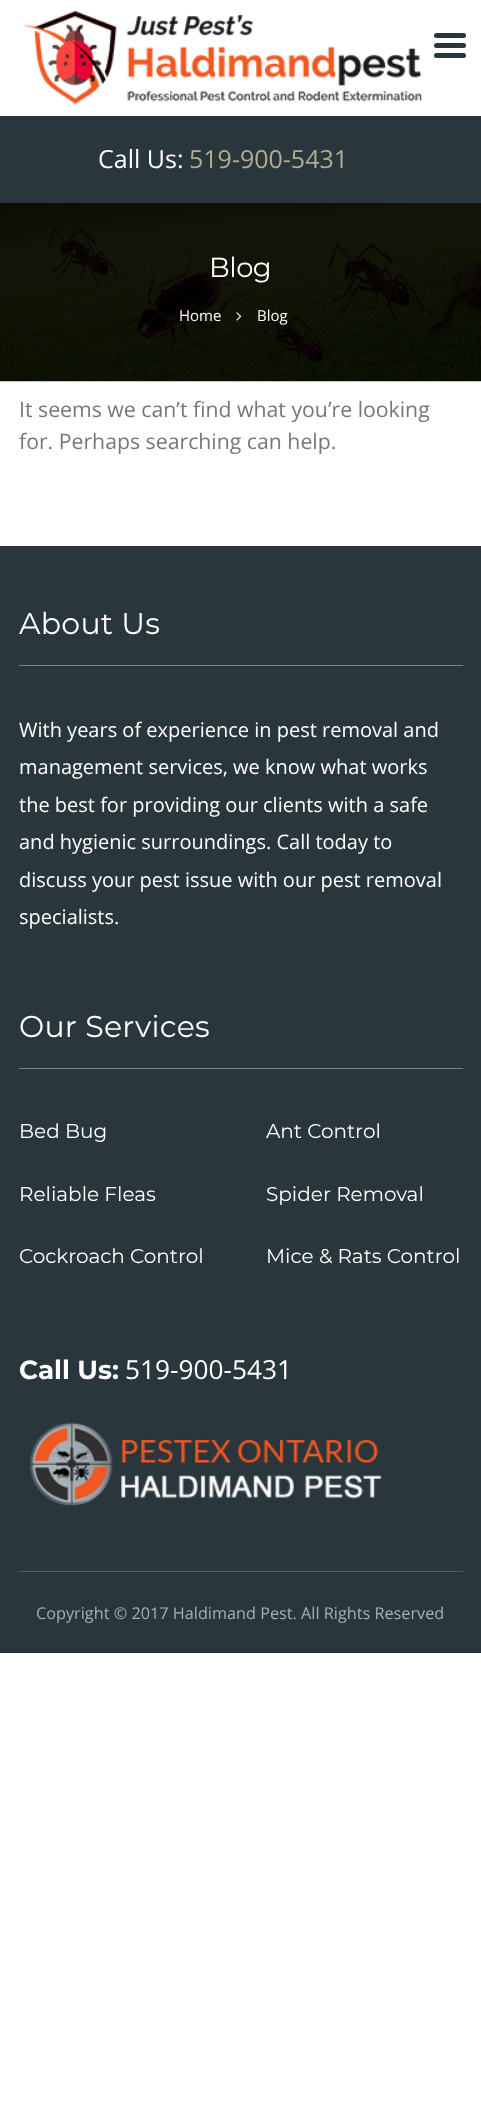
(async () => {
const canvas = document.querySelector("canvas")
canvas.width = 481
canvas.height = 2113
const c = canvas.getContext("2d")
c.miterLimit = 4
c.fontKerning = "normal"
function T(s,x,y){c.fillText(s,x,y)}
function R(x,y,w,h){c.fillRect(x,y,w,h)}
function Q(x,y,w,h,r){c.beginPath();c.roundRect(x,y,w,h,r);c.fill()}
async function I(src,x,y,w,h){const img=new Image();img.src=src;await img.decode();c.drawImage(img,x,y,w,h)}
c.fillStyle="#fff"
R(0,0,481,2113)
await I("1.png",21,11,401,93)
c.fillStyle="#29363b"
Q(434,43,32,5,2.5)
Q(434,33,32,5,2.5)
Q(434,53,32,5,2.5)
R(0,116,481,87)
c.font="25px Open Sans"
c.fillStyle="#fff"
T("Call Us:",98,168)
c.fillStyle="#b2ac90"
T("519-900-5431",189,168)
await I("2.png",0,203,481,179)
c.letterSpacing="-0.5px"
c.font="27.5px Montserrat"
c.fillStyle="#fff"
T("Blog",209,277)
c.letterSpacing="0px"
c.font="15px Open Sans"
T("Home",179,321)
await I("3.png",236,312,6,9)
T("Blog",257,321)
c.font="21.25px Open Sans"
c.fillStyle="#777"
T("It seems we can’t find what you’re looking",19,417)
T("for. Perhaps searching can help.",19,449)
c.fillStyle="#29363b"
R(0,546,481,1107)
c.fillStyle="#7b8184"
R(19,665,444,1)
c.letterSpacing="0.25px"
c.font="30px Montserrat"
c.fillStyle="#fff"
T("About Us",19,634)
c.letterSpacing="0px"
c.font="20px Open Sans"
T("With years of experience in pest removal and",19,737)
T("management services, we know what works",19,774)
T("the best for providing our clients with a safe",19,812)
T("and hygienic surroundings. Call today to",19,849)
T("discuss your pest issue with our pest removal",19,887)
T("specialists.",19,924)
c.fillStyle="#7b8184"
R(19,1068,444,1)
c.letterSpacing="0.25px"
c.font="30px Montserrat"
c.fillStyle="#fff"
T("Our Services",19,1037)
c.letterSpacing="0px"
c.font="20px Montserrat"
T("Bed Bug",19,1138)
T("Ant Control",266,1138)
T("Reliable Fleas",19,1201)
T("Spider Removal",266,1201)
T("Cockroach Control",19,1263)
T("Mice & Rats Control",266,1263)
c.font="bold 26.25px Montserrat"
T("Call Us:",19,1379)
c.font="26.25px Open Sans"
T("519-900-5431",125,1379)
await I("4.png",21,1415,361,95)
c.fillStyle="#525c5f"
R(19,1571,444,1)
c.font="16.25px Open Sans"
c.fillStyle="#a9afb1"
T("Copyright © 2017 Haldimand Pest. All Rights Reserved",36,1619)
})()
